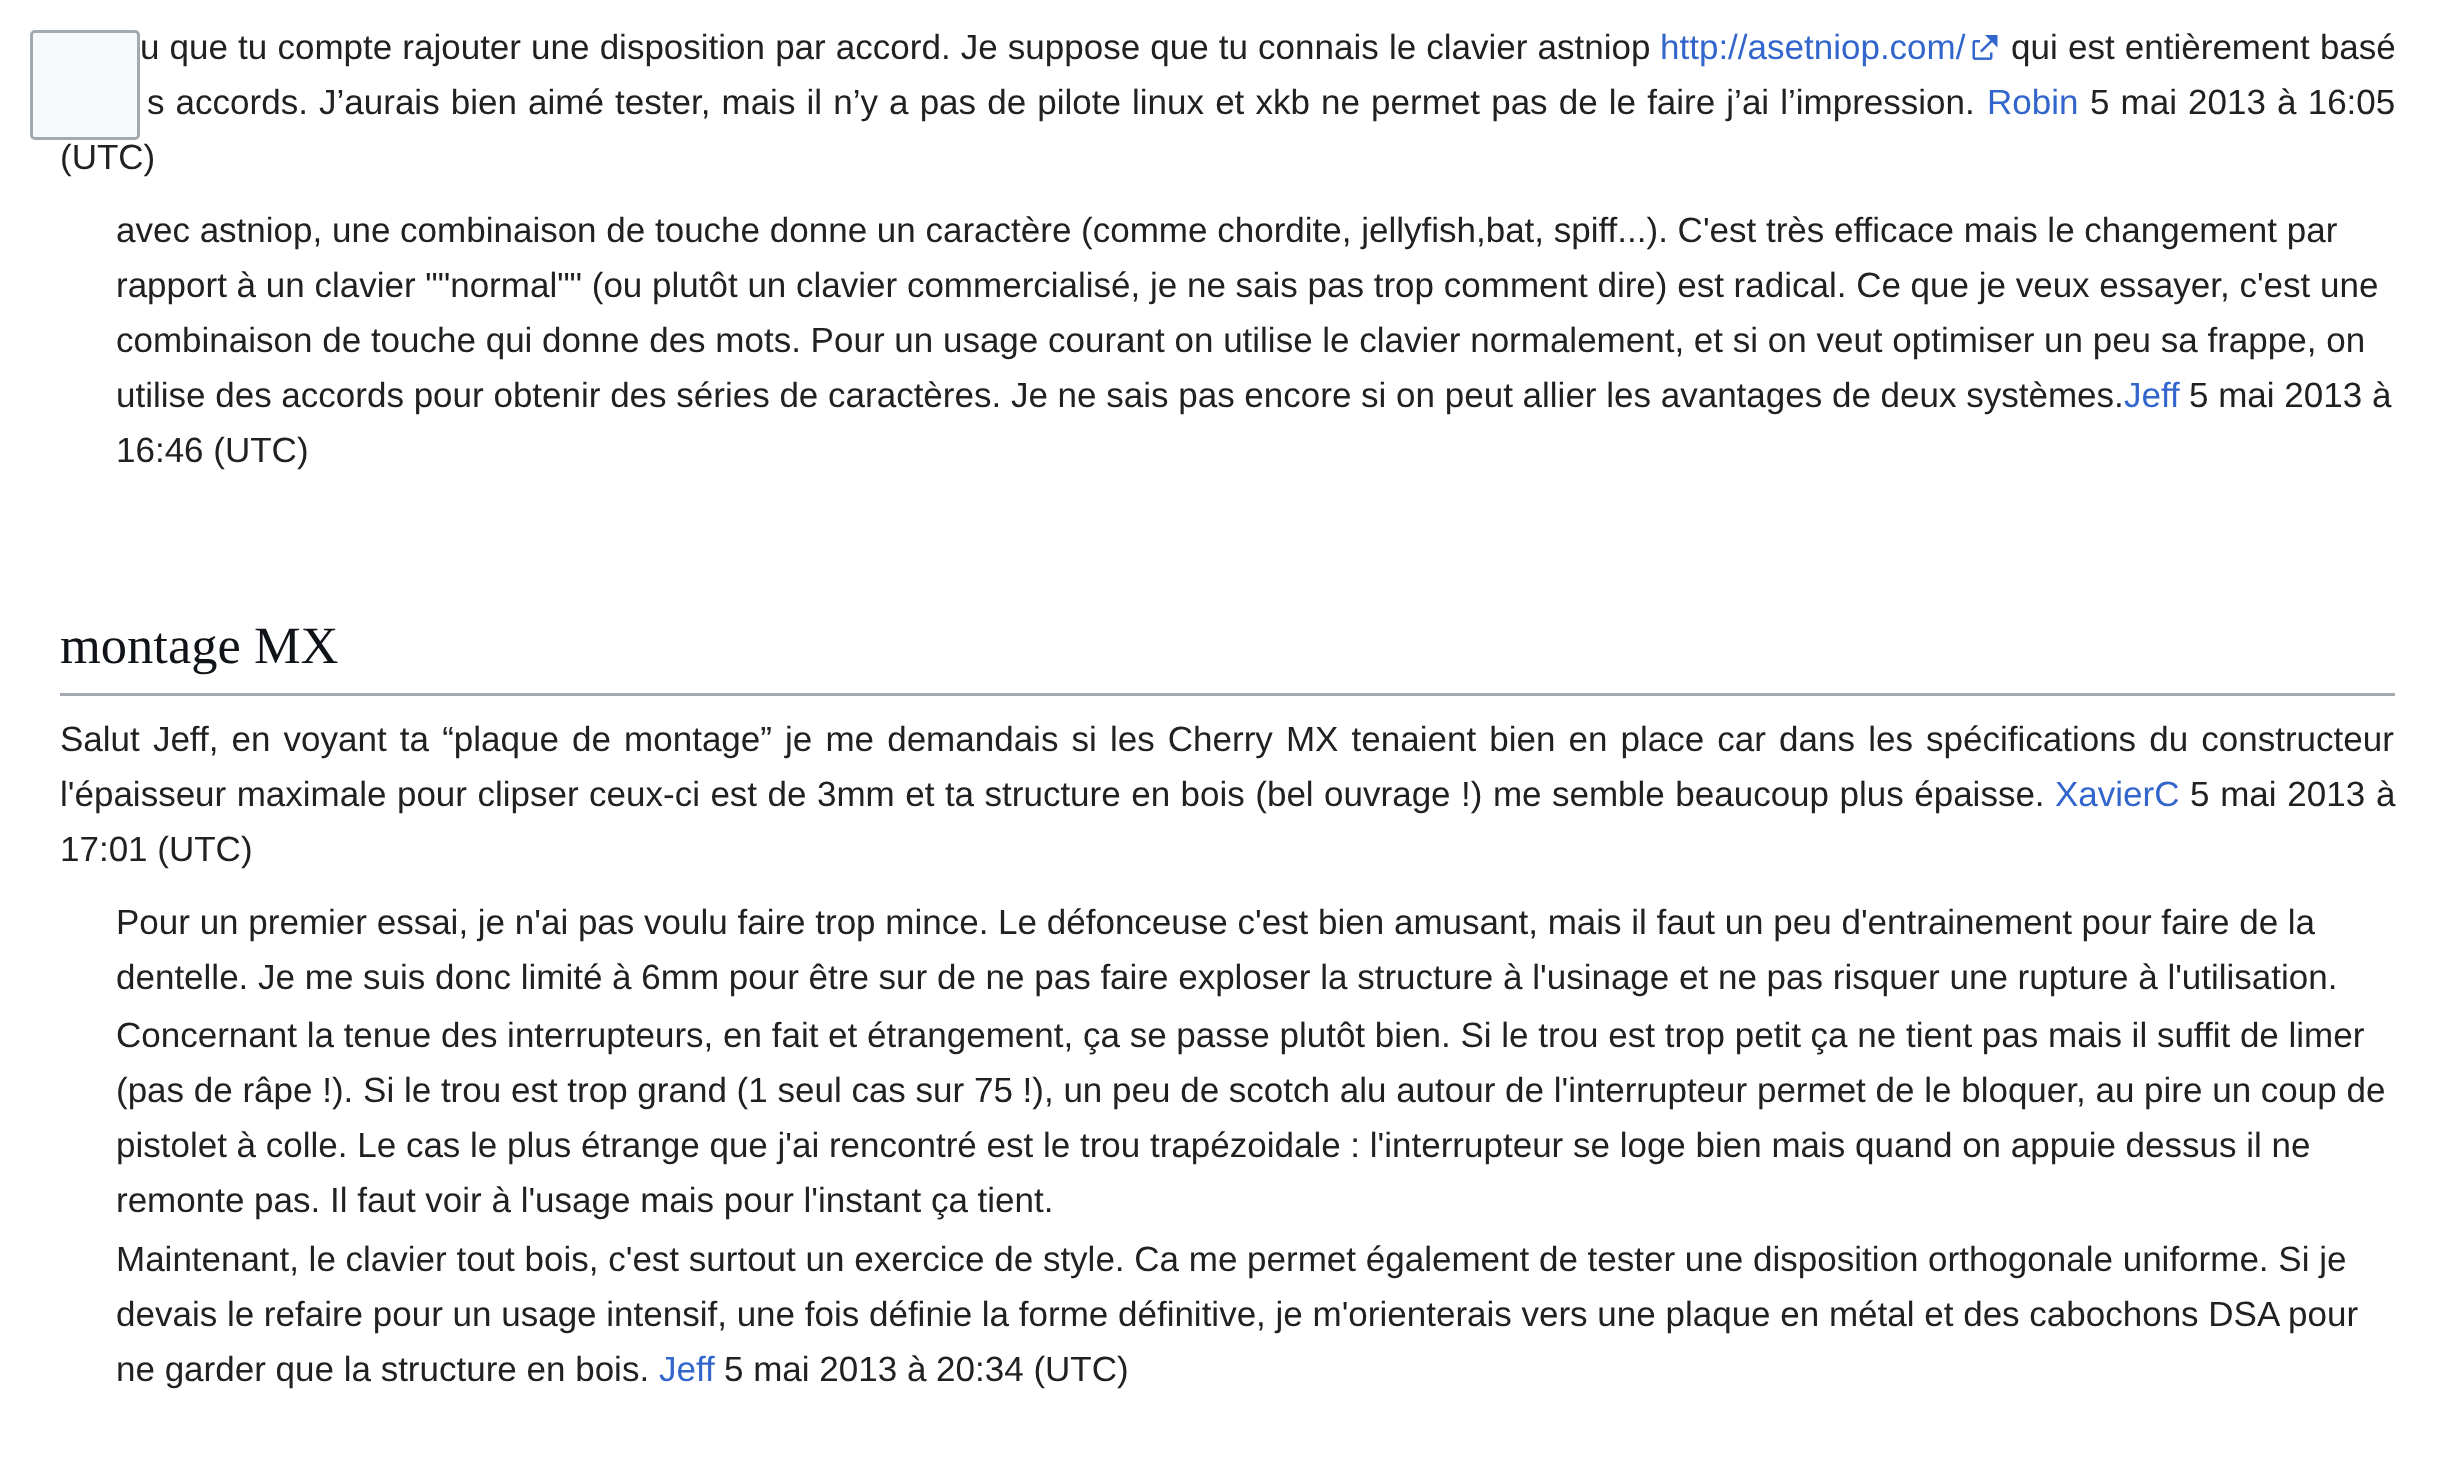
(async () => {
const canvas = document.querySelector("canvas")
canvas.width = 2454
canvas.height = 1472
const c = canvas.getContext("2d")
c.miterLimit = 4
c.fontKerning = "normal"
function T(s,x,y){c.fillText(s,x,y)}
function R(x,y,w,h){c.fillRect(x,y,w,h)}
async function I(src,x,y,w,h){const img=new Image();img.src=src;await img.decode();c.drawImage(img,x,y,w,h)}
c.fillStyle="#fff"
R(0,0,2454,1472)
c.fillStyle="#f8f9fa"
c.beginPath()
c.roundRect(31.5,31.5,107,107,3.5)
c.fill()
c.strokeStyle="#a2a9b1"
c.lineWidth=3
c.stroke()
c.wordSpacing="0.4px"
c.font="35px Liberation Sans"
c.fillStyle="#202122"
T("u que tu compte rajouter une disposition par accord. Je suppose que tu connais le clavier astniop",140,59)
c.wordSpacing="0px"
c.fillStyle="#36c"
T("http://asetniop.com/",1660,59)
await I("1.png",1972,35,26,25)
c.wordSpacing="0.5px"
c.fillStyle="#202122"
T("qui est entièrement basé",2011,59)
c.wordSpacing="1.4px"
T("s accords. J’aurais bien aimé tester, mais il n’y a pas de pilote linux et xkb ne permet pas de le faire j’ai l’impression.",147,114)
c.wordSpacing="0px"
c.fillStyle="#36c"
T("Robin",1987,114)
c.wordSpacing="1.4px"
c.fillStyle="#202122"
T("5 mai 2013 à 16:05",2090,114)
c.wordSpacing="0px"
T("(UTC)",60,169)
T("avec astniop, une combinaison de touche donne un caractère (comme chordite, jellyfish,bat, spiff...). C'est très efficace mais le changement par",116,242)
T("rapport à un clavier \"\"normal\"\" (ou plutôt un clavier commercialisé, je ne sais pas trop comment dire) est radical. Ce que je veux essayer, c'est une",116,297)
T("combinaison de touche qui donne des mots. Pour un usage courant on utilise le clavier normalement, et si on veut optimiser un peu sa frappe, on",116,352)
T("utilise des accords pour obtenir des séries de caractères. Je ne sais pas encore si on peut allier les avantages de deux systèmes.",116,407)
c.fillStyle="#36c"
T("Jeff",2124,407)
c.fillStyle="#202122"
T("5 mai 2013 à",2189,407)
T("16:46 (UTC)",116,462)
c.fillStyle="#a2a9b1"
R(60,693,2335,3)
c.font="52.5px Liberation Serif"
c.fillStyle="#101418"
T("montage MX",60,663)
c.wordSpacing="3.4px"
c.font="35px Liberation Sans"
c.fillStyle="#202122"
T("Salut Jeff, en voyant ta “plaque de montage” je me demandais si les Cherry MX tenaient bien en place car dans les spécifications du constructeur",60,751)
c.wordSpacing="0.75px"
T("l'épaisseur maximale pour clipser ceux-ci est de 3mm et ta structure en bois (bel ouvrage !) me semble beaucoup plus épaisse.",60,806)
c.wordSpacing="0px"
c.fillStyle="#36c"
T("XavierC",2055,806)
c.wordSpacing="1px"
c.fillStyle="#202122"
T("5 mai 2013 à",2190,806)
c.wordSpacing="0px"
T("17:01 (UTC)",60,861)
T("Pour un premier essai, je n'ai pas voulu faire trop mince. Le défonceuse c'est bien amusant, mais il faut un peu d'entrainement pour faire de la",116,934)
T("dentelle. Je me suis donc limité à 6mm pour être sur de ne pas faire exploser la structure à l'usinage et ne pas risquer une rupture à l'utilisation.",116,989)
T("Concernant la tenue des interrupteurs, en fait et étrangement, ça se passe plutôt bien. Si le trou est trop petit ça ne tient pas mais il suffit de limer",116,1047)
T("(pas de râpe !). Si le trou est trop grand (1 seul cas sur 75 !), un peu de scotch alu autour de l'interrupteur permet de le bloquer, au pire un coup de",116,1102)
T("pistolet à colle. Le cas le plus étrange que j'ai rencontré est le trou trapézoidale : l'interrupteur se loge bien mais quand on appuie dessus il ne",116,1157)
T("remonte pas. Il faut voir à l'usage mais pour l'instant ça tient.",116,1212)
T("Maintenant, le clavier tout bois, c'est surtout un exercice de style. Ca me permet également de tester une disposition orthogonale uniforme. Si je",116,1271)
T("devais le refaire pour un usage intensif, une fois définie la forme définitive, je m'orienterais vers une plaque en métal et des cabochons DSA pour",116,1326)
T("ne garder que la structure en bois.",116,1381)
c.fillStyle="#36c"
T("Jeff",659,1381)
c.fillStyle="#202122"
T("5 mai 2013 à 20:34 (UTC)",724,1381)
})()
